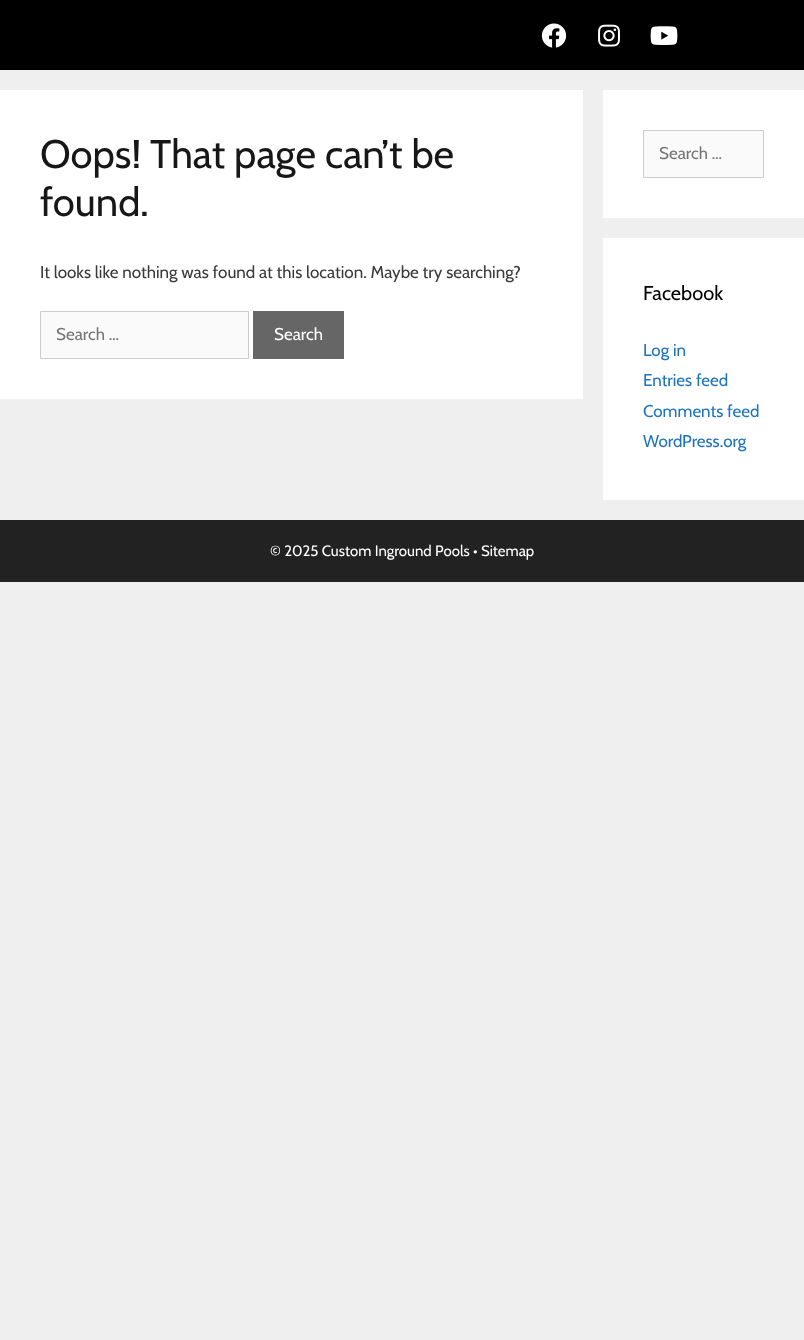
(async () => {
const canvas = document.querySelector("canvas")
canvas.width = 804
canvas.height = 1340
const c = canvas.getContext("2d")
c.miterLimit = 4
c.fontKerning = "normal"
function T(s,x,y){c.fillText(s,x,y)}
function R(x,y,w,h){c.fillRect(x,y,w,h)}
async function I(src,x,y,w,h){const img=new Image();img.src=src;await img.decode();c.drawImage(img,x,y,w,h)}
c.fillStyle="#efefef"
R(0,0,804,1340)
c.fillStyle="#000"
R(0,0,804,70)
await I("1.png",541,23,26,25)
await I("2.png",598,24,22,23)
await I("3.png",650,26,28,19)
c.fillStyle="#fff"
R(0,90,583,309)
c.font="40px Cabin"
c.fillStyle="#171717"
T("Oops! That page can’t be",40,168)
T("found.",40,216)
c.font="17px Cabin"
c.fillStyle="#3a3a3a"
T("It looks like nothing was found at this location. Maybe try searching?",40,278)
c.fillStyle="#fafafa"
c.beginPath()
c.rect(40.5,311.5,208,47)
c.fill()
c.strokeStyle="#ccc"
c.stroke()
c.fillStyle="#757575"
T("Search …",56,340)
c.fillStyle="#666"
R(253,311,91,48)
c.fillStyle="#fff"
T("Search",274,340)
R(603,90,201,128)
c.fillStyle="#fafafa"
c.beginPath()
c.rect(643.5,130.5,120,47)
c.fill()
c.stroke()
c.fillStyle="#757575"
T("Search …",659,159)
c.fillStyle="#fff"
R(603,238,201,262)
c.font="20px Cabin"
c.fillStyle="#000"
T("Facebook",643,300)
c.font="17px Cabin"
c.fillStyle="#1e73be"
T("Log in",643,356)
T("Entries feed",643,386)
T("Comments feed",643,417)
T("WordPress.org",643,447)
c.fillStyle="#222"
R(0,520,804,62)
c.font="15px Cabin"
c.fillStyle="#fff"
T("© 2025 Custom Inground Pools • Sitemap",270,556)
})()
